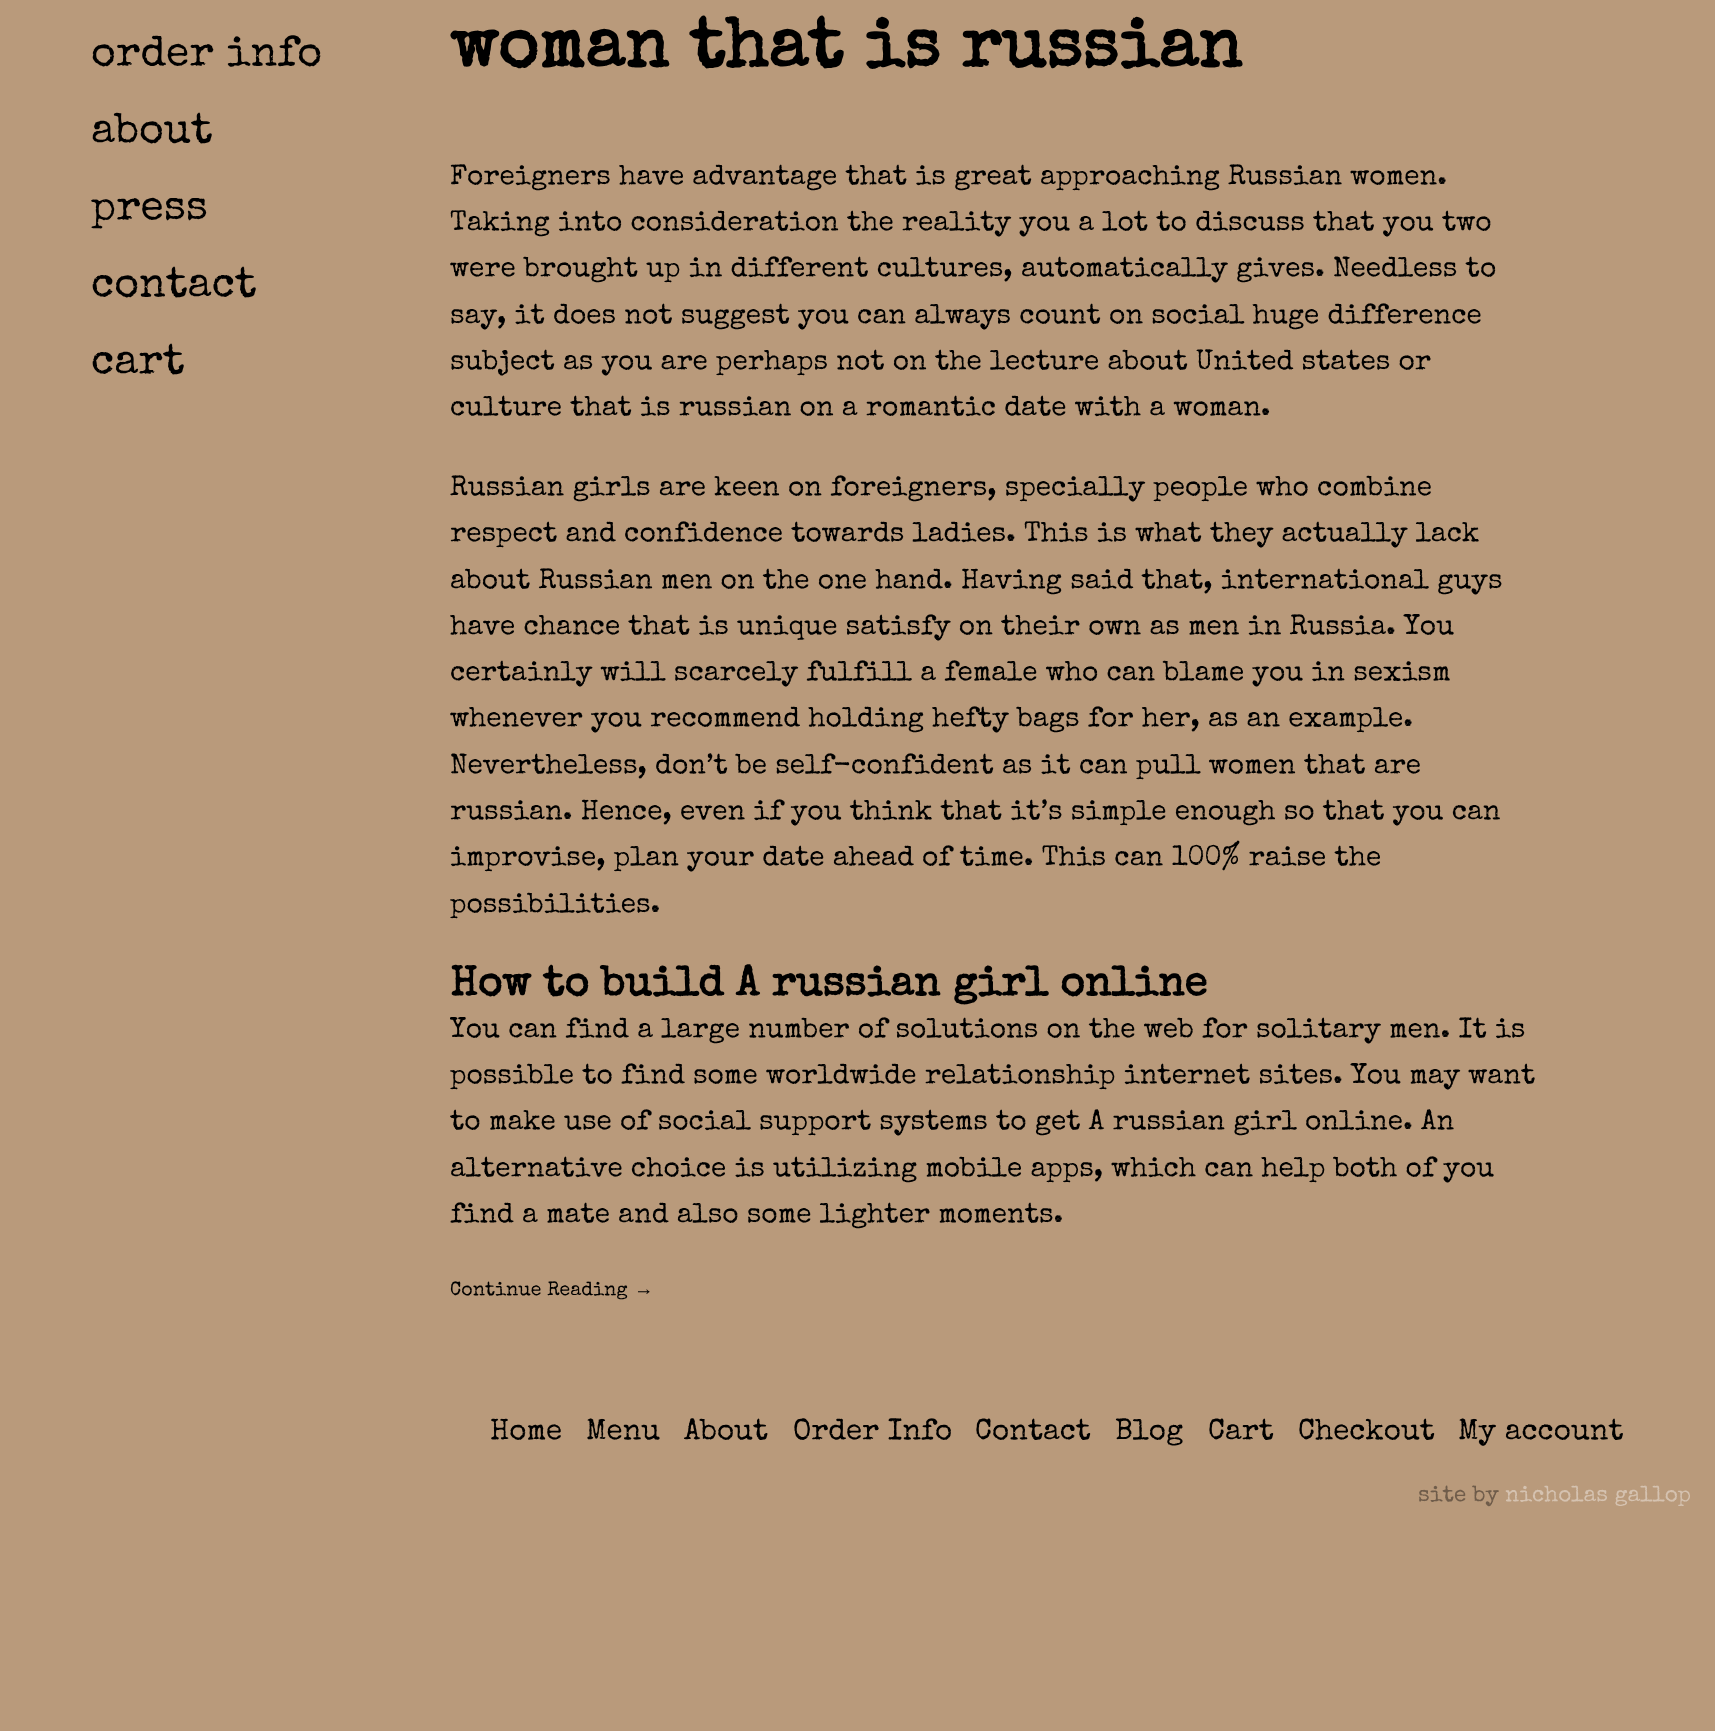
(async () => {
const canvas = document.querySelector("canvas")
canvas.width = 1715
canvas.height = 1731
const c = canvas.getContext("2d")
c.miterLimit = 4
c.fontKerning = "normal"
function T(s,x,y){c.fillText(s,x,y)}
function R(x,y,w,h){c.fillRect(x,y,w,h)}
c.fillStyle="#b99a7b"
R(0,0,1715,1731)
c.font="42.5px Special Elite"
c.fillStyle="#000"
T("order info",91,65)
T("about",91,142)
T("press",91,219)
T("contact",91,296)
T("cart",91,373)
c.font="bold 70px Special Elite"
T("woman that is russian",450,66)
c.font="28px Special Elite"
T("Foreigners have advantage that is great approaching Russian women.",450,184)
T("Taking into consideration the reality you a lot to discuss that you two",450,230)
T("were brought up in different cultures, automatically gives. Needless to",450,276)
T("say, it does not suggest you can always count on social huge difference",450,323)
T("subject as you are perhaps not on the lecture about United states or",450,369)
T("culture that is russian on a romantic date with a woman.",450,415)
T("Russian girls are keen on foreigners, specially people who combine",450,495)
T("respect and confidence towards ladies. This is what they actually lack",450,541)
T("about Russian men on the one hand. Having said that, international guys",450,588)
T("have chance that is unique satisfy on their own as men in Russia. You",450,634)
T("certainly will scarcely fulfill a female who can blame you in sexism",450,680)
T("whenever you recommend holding hefty bags for her, as an example.",450,726)
T("Nevertheless, don’t be self-confident as it can pull women that are",450,773)
T("russian. Hence, even if you think that it’s simple enough so that you can",450,819)
T("improvise, plan your date ahead of time. This can 100% raise the",450,865)
T("possibilities.",450,912)
c.font="bold 42px Special Elite"
T("How to build A russian girl online",450,995)
c.save()
c.beginPath()
c.rect(450,0,1092,1342)
c.clip()
c.font="28px Special Elite"
T("You can find a large number of solutions on the web for solitary men. It is",450,1037)
c.restore()
c.font="28px Special Elite"
T("possible to find some worldwide relationship internet sites. You may want",450,1083)
T("to make use of social support systems to get A russian girl online. An",450,1129)
T("alternative choice is utilizing mobile apps, which can help both of you",450,1176)
T("find a mate and also some lighter moments.",450,1222)
c.font="19.5px Special Elite"
T("Continue Reading",450,1295)
c.font="19.5px Liberation Sans"
T("→",634,1295)
c.font="29.5px Special Elite"
T("Home",490,1439)
T("Menu",586,1439)
T("About",684,1439)
T("Order Info",793,1439)
T("Contact",975,1439)
T("Blog",1115,1439)
T("Cart",1208,1439)
T("Checkout",1298,1439)
T("My account",1458,1439)
c.font="22.5px Special Elite"
c.fillStyle="#6f5c4a"
T("site by",1418,1501)
c.fillStyle="#d5c2b0"
T("nicholas gallop",1505,1501)
})()
